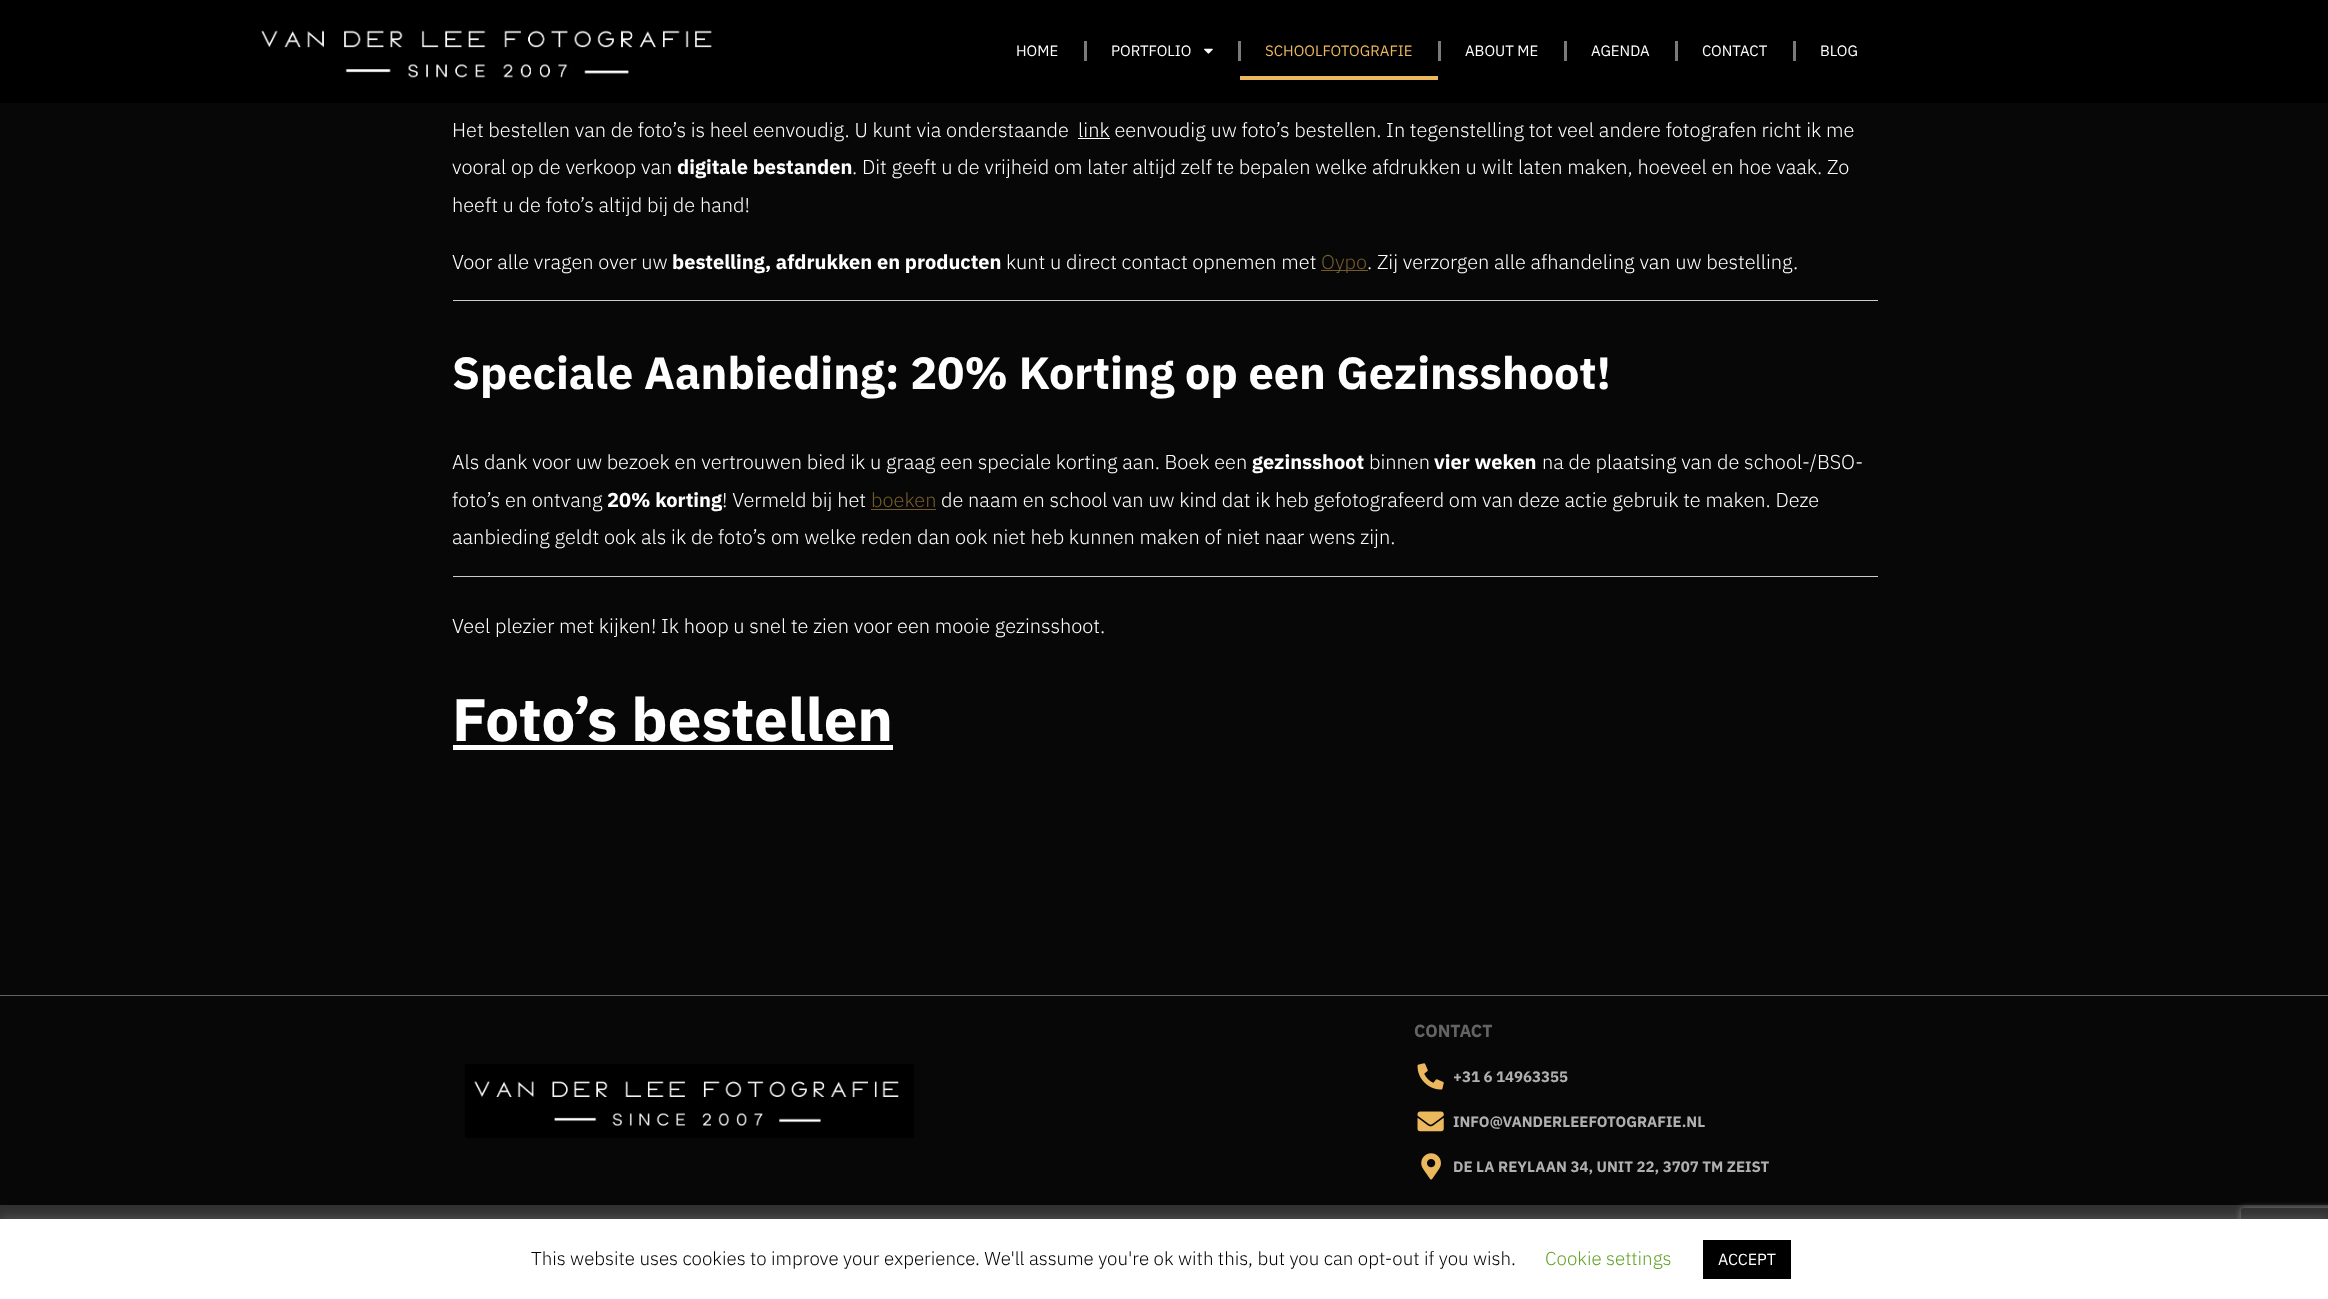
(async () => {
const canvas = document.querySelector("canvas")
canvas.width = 2328
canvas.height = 1299
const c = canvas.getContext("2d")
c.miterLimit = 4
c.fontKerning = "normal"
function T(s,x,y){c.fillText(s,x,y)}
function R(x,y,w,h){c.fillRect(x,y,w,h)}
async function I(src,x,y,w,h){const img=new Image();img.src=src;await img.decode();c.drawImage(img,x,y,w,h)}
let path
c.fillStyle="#070707"
R(0,0,2328,1299)
c.fillStyle="#000"
R(0,0,2328,103)
await I("1.png",261,30,451,48)
c.font="15px IBM Plex Sans"
c.fillStyle="#fff"
T("HOME",1016,56)
c.fillStyle="#7a7a7a"
R(1084,41,3,20)
c.fillStyle="#fff"
T("PORTFOLIO",1111,56)
await I("2.png",1204,48,9,6)
c.fillStyle="#7a7a7a"
R(1238,41,3,20)
c.fillStyle="#ebb85e"
T("SCHOOLFOTOGRAFIE",1265,56)
R(1240,76,198,4)
c.fillStyle="#7a7a7a"
R(1438,41,3,20)
c.fillStyle="#fff"
T("ABOUT ME",1465,56)
c.fillStyle="#7a7a7a"
R(1564,41,3,20)
c.fillStyle="#fff"
T("AGENDA",1591,56)
c.fillStyle="#7a7a7a"
R(1675,41,3,20)
c.fillStyle="#fff"
T("CONTACT",1702,56)
c.fillStyle="#7a7a7a"
R(1793,41,3,20)
c.fillStyle="#fff"
T("BLOG",1820,56)
c.font="300 20px IBM Plex Sans"
T("Het bestellen van de foto’s is heel eenvoudig. U kunt via onderstaande",452,137)
R(1078,138,32,1)
T("link eenvoudig uw foto’s bestellen. In tegenstelling tot veel andere fotografen richt ik me",1078,137)
T("vooral op de verkoop van",452,174)
c.font="bold 20px IBM Plex Sans"
T("digitale bestanden",677,174)
c.font="300 20px IBM Plex Sans"
T(". Dit geeft u de vrijheid om later altijd zelf te bepalen welke afdrukken u wilt laten maken, hoeveel en hoe vaak. Zo",852,174)
T("heeft u de foto’s altijd bij de hand!",452,212)
T("Voor alle vragen over uw",452,269)
c.font="bold 20px IBM Plex Sans"
T("bestelling, afdrukken en producten",672,269)
c.font="300 20px IBM Plex Sans"
T("kunt u direct contact opnemen met",1006,269)
c.fillStyle="#755b2b"
R(1321,270,47,1)
T("Oypo",1321,269)
c.fillStyle="#fff"
T(". Zij verzorgen alle afhandeling van uw bestelling.",1367,269)
c.fillStyle="#ccc"
R(453,300,1425,1)
c.font="bold 45px IBM Plex Sans"
c.fillStyle="#fff"
T("Speciale Aanbieding: 20% Korting op een Gezinsshoot!",452,389)
c.font="300 20px IBM Plex Sans"
T("Als dank voor uw bezoek en vertrouwen bied ik u graag een speciale korting aan. Boek een",452,469)
c.font="bold 20px IBM Plex Sans"
T("gezinsshoot",1252,469)
c.font="300 20px IBM Plex Sans"
T("binnen",1369,469)
c.font="bold 20px IBM Plex Sans"
T("vier weken",1434,469)
c.font="300 20px IBM Plex Sans"
T("na de plaatsing van de school-/BSO-",1542,469)
T("foto’s en ontvang",452,507)
c.font="bold 20px IBM Plex Sans"
T("20% korting",607,507)
c.font="300 20px IBM Plex Sans"
T("! Vermeld bij het",722,507)
c.fillStyle="#755b2b"
T("boeken",871,507)
R(871,509,65,1)
c.fillStyle="#fff"
T("de naam en school van uw kind dat ik heb gefotografeerd om van deze actie gebruik te maken. Deze",941,507)
T("aanbieding geldt ook als ik de foto’s om welke reden dan ook niet heb kunnen maken of niet naar wens zijn.",452,544)
c.fillStyle="#ccc"
R(453,576,1425,1)
c.fillStyle="#fff"
T("Veel plezier met kijken! Ik hoop u snel te zien voor een mooie gezinsshoot.",452,633)
c.font="bold 60px IBM Plex Sans"
T("Foto’s bestellen",452,741)
R(453,745,440,5)
c.fillStyle="#636363"
R(0,995,2328,1)
await I("3.png",465,1064,449,74)
c.font="bold 17.5px IBM Plex Sans"
T("CONTACT",1414,1037)
await I("4.png",1417,1063,27,27)
c.font="bold 15px IBM Plex Sans"
c.fillStyle="#b1b0b0"
T("+31 6 14963355",1453,1082)
await I("5.png",1417,1111,27,21)
T("INFO@VANDERLEEFOTOGRAFIE.NL",1453,1127)
await I("6.png",1421,1153,20,27)
T("DE LA REYLAAN 34, UNIT 22, 3707 TM ZEIST",1453,1172)
c.fillStyle="#313131"
R(0,1205,2328,14)
c.fillStyle="#acabab4d"
c.filter="blur(6px)"
c.beginPath()
c.rect(0,1218,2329,81)
c.fill()
c.filter="none"
c.save()
path = new Path2D("M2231 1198h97v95h-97zm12.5 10h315c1.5 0 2.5 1 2.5 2.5v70c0 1.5-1 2.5-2.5 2.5h-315c-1.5 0-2.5-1-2.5-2.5v-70c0-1.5 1-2.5 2.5-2.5z")
c.clip(path,"evenodd")
c.fillStyle="#808080"
c.filter="blur(3px)"
c.beginPath()
c.roundRect(2241,1208,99,75,2.5)
c.fill()
c.filter="none"
c.restore()
c.fillStyle="#fff"
R(0,1219,2328,80)
c.font="300 18.75px IBM Plex Sans"
c.fillStyle="#000"
T("This website uses cookies to improve your experience. We'll assume you're ok with this, but you can opt-out if you wish.",531,1265)
c.fillStyle="#62a329"
T("Cookie settings",1545,1265)
c.fillStyle="#000"
R(1703,1240,88,39)
c.font="16px IBM Plex Sans"
c.fillStyle="#fff"
T("ACCEPT",1718,1265)
})()
